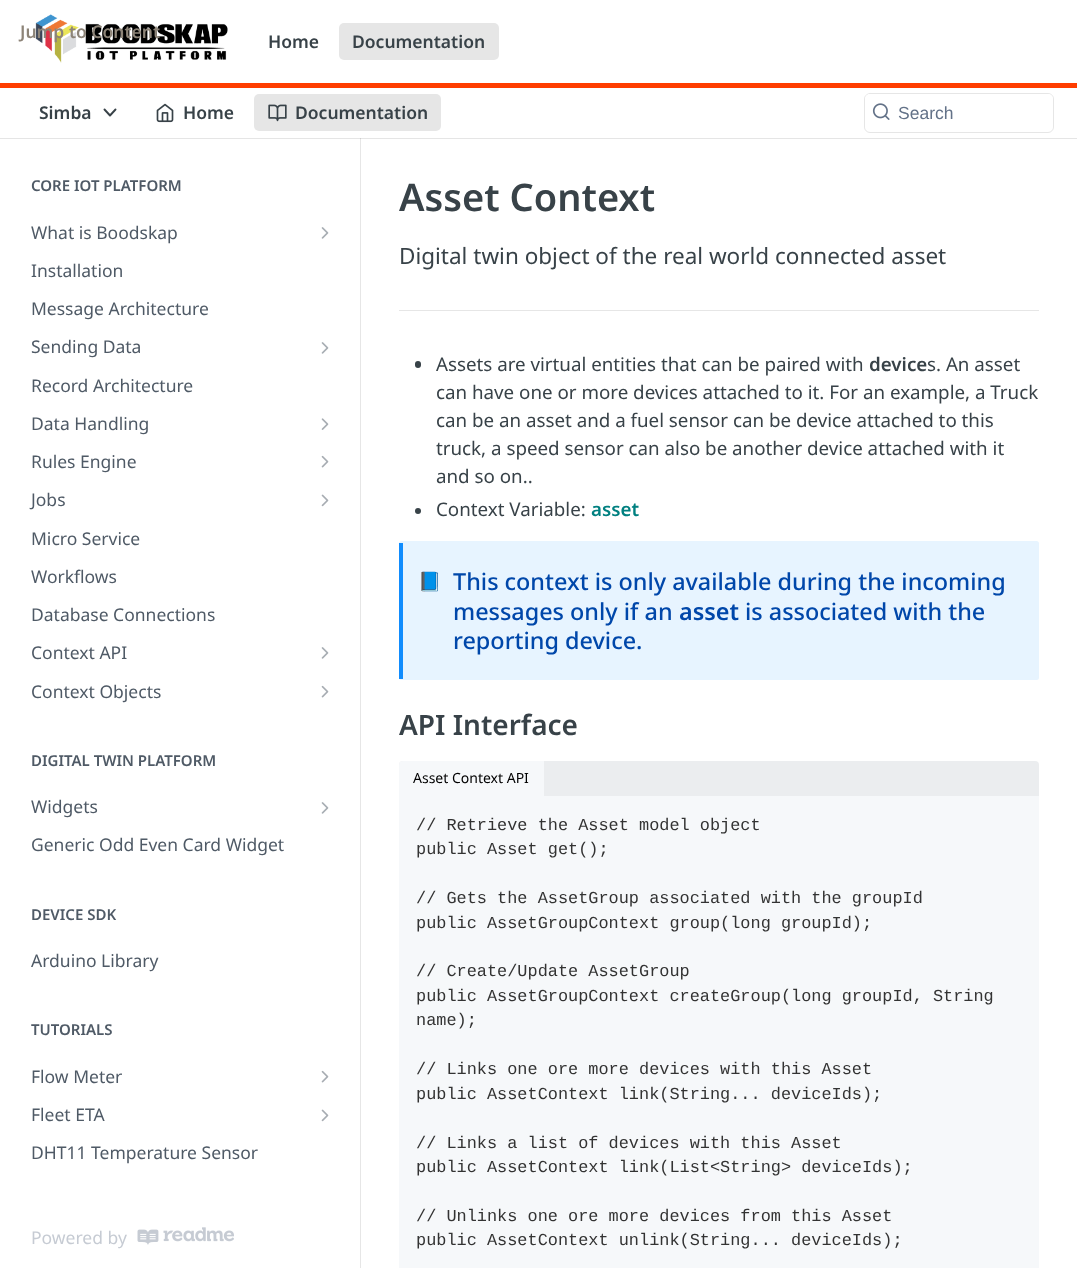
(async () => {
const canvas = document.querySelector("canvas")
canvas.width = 1077
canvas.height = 1268
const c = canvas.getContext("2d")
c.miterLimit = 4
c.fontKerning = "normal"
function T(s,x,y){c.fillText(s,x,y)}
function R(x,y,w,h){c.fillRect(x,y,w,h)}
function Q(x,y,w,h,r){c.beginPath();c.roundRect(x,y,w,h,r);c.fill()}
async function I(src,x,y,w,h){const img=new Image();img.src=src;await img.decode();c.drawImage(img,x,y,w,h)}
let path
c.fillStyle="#fff"
R(0,0,1077,1268)
c.fillStyle="#e6e6e6"
R(360,138,1,1130)
c.fillStyle="#0000001a"
path = new Path2D("M0 138v1h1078v-138v137z")
c.fill(path)
c.fillStyle="#ff3d00"
R(0,83,1077,5)
await I("1.png",35,14,193,49)
c.font="600 17.5px Noto Sans"
c.fillStyle="#8d8478"
T("Jump to Content",20,38)
c.fillStyle="#384248"
T("Home",268,48)
c.fillStyle="#e6e6e6"
Q(339,23,160,37,5)
c.fillStyle="#384248"
T("Documentation",352,48)
T("Simba",39,119)
path = new Path2D("M104.5 109.5l5.5 6l5.5-6")
c.strokeStyle="#384248"
c.lineWidth=1.9
c.lineCap="round"
c.lineJoin="round"
c.stroke(path)
await I("2.png",156,103,18,20)
T("Home",183,119)
c.fillStyle="#e6e6e6"
Q(254,94,187,37,5)
await I("3.png",268,104,19,18)
c.fillStyle="#384248"
T("Documentation",295,119)
c.beginPath()
c.roundRect(864.5,93.5,189,39,5.5)
c.strokeStyle="#e6e6e6"
c.lineWidth=1
c.lineJoin="miter"
c.stroke()
c.fillStyle="#fff"
Q(865,94,188,37,5)
await I("4.png",872,103,18,17)
c.font="17.5px Liberation Sans"
c.fillStyle="#637288"
T("Search",898,119)
c.font="600 15px Noto Sans"
c.fillStyle="#4f5a66"
T("CORE IOT PLATFORM",31,191)
c.font="17.5px Noto Sans"
T("What is Boodskap",31,239)
await I("5.png",321,227,8,12)
T("Installation",31,277)
T("Message Architecture",31,315)
T("Sending Data",31,353)
await I("5.png",321,342,8,12)
T("Record Architecture",31,392)
T("Data Handling",31,430)
await I("6.png",321,418,8,12)
T("Rules Engine",31,468)
await I("7.png",321,455,8,13)
T("Jobs",31,506)
await I("8.png",321,494,8,13)
T("Micro Service",31,545)
T("Workflows",31,583)
T("Database Connections",31,621)
T("Context API",31,659)
await I("5.png",321,647,8,12)
T("Context Objects",31,698)
await I("7.png",321,685,8,13)
c.font="600 15px Noto Sans"
T("DIGITAL TWIN PLATFORM",31,766)
c.font="17.5px Noto Sans"
T("Widgets",31,813)
await I("5.png",321,802,8,12)
T("Generic Odd Even Card Widget",31,851)
c.font="600 15px Noto Sans"
T("DEVICE SDK",31,920)
c.font="17.5px Noto Sans"
T("Arduino Library",31,967)
c.font="600 15px Noto Sans"
T("TUTORIALS",31,1035)
c.font="17.5px Noto Sans"
T("Flow Meter",31,1083)
await I("7.png",321,1070,8,13)
T("Fleet ETA",31,1121)
await I("8.png",321,1109,8,13)
T("DHT11 Temperature Sensor",31,1159)
c.fillStyle="#c6cbd3"
T("Powered by",31,1244)
await I("9.png",137,1227,97,18)
c.fillStyle="#e6e6e6"
R(399,310,640,1)
c.font="600 38px Noto Sans"
c.fillStyle="#384248"
T("Asset Context",399,211)
c.font="22.5px Noto Sans"
T("Digital twin object of the real world connected asset",399,264)
Q(415,361,6,7,3)
c.font="18.75px Noto Sans"
T("Assets are virtual entities that can be paired with",436,371)
c.font="600 18.75px Noto Sans"
T("device",869,371)
c.font="18.75px Noto Sans"
T("s. An asset",927,371)
T("can have one or more devices attached to it. For an example, a Truck",436,399)
T("can be an asset and a fuel sensor can be device attached to this",436,427)
T("truck, a speed sensor can also be another device attached with it",436,455)
T("and so on..",436,483)
c.beginPath()
c.arc(418,511,3,0,7)
c.fill()
T("Context Variable:",436,516)
c.font="600 18.75px Noto Sans"
c.fillStyle="#008080"
T("asset",591,516)
c.fillStyle="#e7f4ff"
Q(399,541,640,139,2.5)
c.fillStyle="#118cfd"
R(399,543,4,136)
c.font="18.75px Noto Color Emoji"
c.fillStyle="#384248"
T("📘",418,588)
c.font="500 23.4px Noto Sans"
c.fillStyle="#0047aa"
T("This context is only available during the incoming",453,590)
T("messages only if an",453,620)
c.font="600 23.4px Noto Sans"
T("asset",679,620)
c.font="500 23.4px Noto Sans"
T("is associated with the",745,620)
T("reporting device.",453,649)
c.font="600 28px Noto Sans"
c.fillStyle="#384248"
T("API Interface",399,735)
c.fillStyle="#ebedef"
c.beginPath()
c.roundRect(399,761,640,35,[4,4,0,0])
c.fill()
c.fillStyle="#f6f8fa"
c.beginPath()
c.roundRect(399,761,145,35,[4,0,0,0])
c.fill()
c.font="14px Noto Sans"
c.fillStyle="#000"
T("Asset Context API",413,783)
c.fillStyle="#f6f8fa"
R(399,796,640,472)
c.font="16.9px Liberation Mono"
c.fillStyle="#333"
T("// Retrieve the Asset model object",416,830)
T("public Asset get();",416,854)
T("// Gets the AssetGroup associated with the groupId",416,903)
T("public AssetGroupContext group(long groupId);",416,928)
T("// Create/Update AssetGroup",416,976)
T("public AssetGroupContext createGroup(long groupId, String",416,1001)
T("name);",416,1025)
T("// Links one ore more devices with this Asset",416,1074)
T("public AssetContext link(String... deviceIds);",416,1099)
T("// Links a list of devices with this Asset",416,1148)
T("public AssetContext link(List<String> deviceIds);",416,1172)
T("// Unlinks one ore more devices from this Asset",416,1221)
T("public AssetContext unlink(String... deviceIds);",416,1245)
})()
